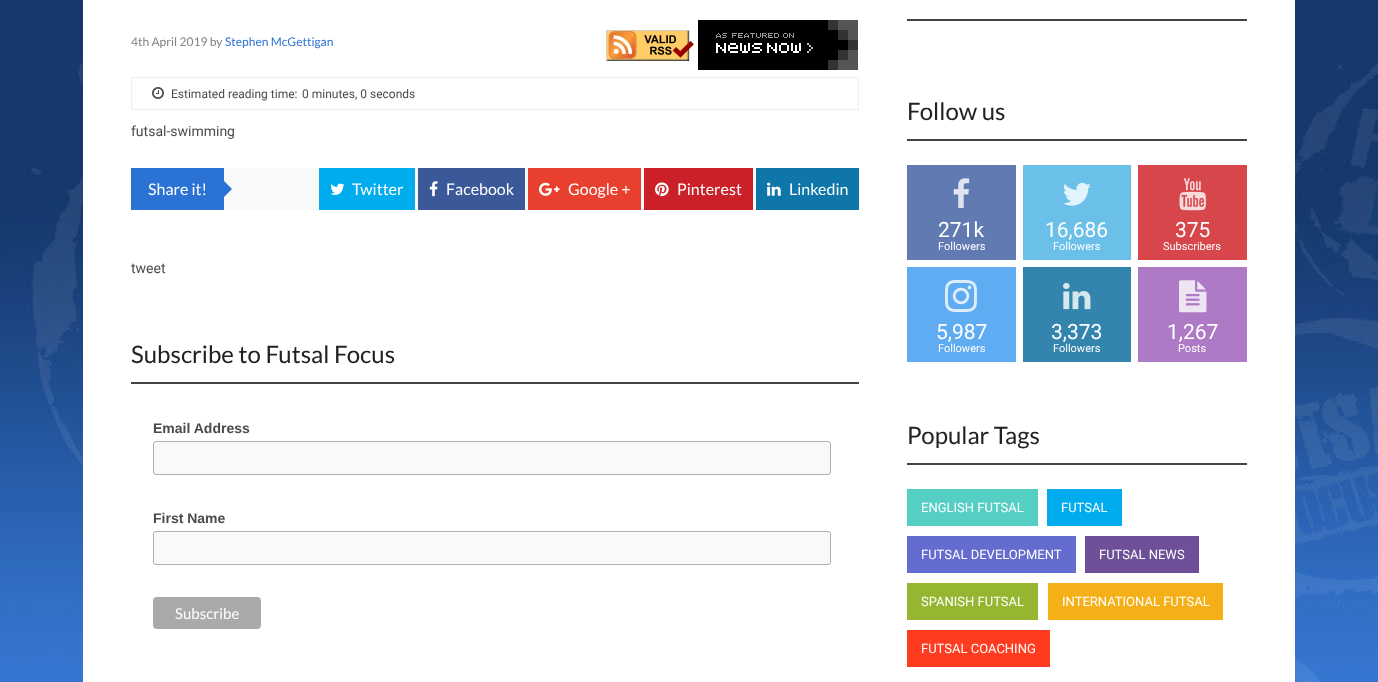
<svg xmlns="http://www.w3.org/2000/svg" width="1378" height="682">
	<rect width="100%" height="100%" fill="#FFFFFF" />
	<image x="0" y="0" width="1378" height="682" href="assets/img1.png" />
	<rect x="83" y="0" width="1212" height="682" fill="#FFFFFF" />
	<text x="131" y="46" font-family="Lato" font-size="12" fill="#828282">4th April 2019 by</text>
	<text x="225" y="46" font-family="Lato" font-size="12" fill="#2A73D5">Stephen McGettigan</text>
	<image x="606" y="30" width="88" height="31" href="assets/img2.png" />
	<image x="698" y="20" width="160" height="50" href="assets/img3.png" />
	<rect x="131.5" y="77.5" width="727" height="32" fill="none" stroke="#EEEEEE" />
	<image x="152" y="87" width="12" height="12" href="assets/img4.png" />
	<g font-family="Roboto" font-size="12" fill="#4B4B4B">
		<text x="171" y="98">Estimated reading time:</text>
		<text x="302" y="98">0 minutes, 0 seconds</text>
	</g>
	<text x="131" y="136" font-family="Roboto" font-size="14" fill="#4B4B4B">futsal-swimming</text>
	<rect x="224" y="168" width="532" height="42" fill="#F9F9F9" />
	<rect x="131" y="168" width="93" height="42" fill="#2A73D5" />
	<text x="148" y="195" font-family="Lato" font-size="16" fill="#FFFFFF">Share it!</text>
	<path d="M224 197V181L232 189Z" fill="#2A73D5" />
	<rect x="319" y="168" width="96" height="42" fill="#00ACEE" />
	<image x="330" y="183" width="15" height="12" href="assets/img5.png" />
	<text x="352" y="195" font-family="Lato" font-size="16" fill="#FFFFFF">Twitter</text>
	<rect x="418" y="168" width="107" height="42" fill="#3B5998" />
	<image x="429" y="181" width="9" height="16" href="assets/img6.png" />
	<text x="446" y="195" font-family="Lato" font-size="16" fill="#FFFFFF">Facebook</text>
	<rect x="528" y="168" width="113" height="42" fill="#E93F2E" />
	<image x="539" y="182" width="21" height="14" href="assets/img7.png" />
	<text x="568" y="195" font-family="Lato" font-size="16" fill="#FFFFFF">Google +</text>
	<rect x="644" y="168" width="109" height="42" fill="#CB2027" />
	<image x="655" y="182" width="14" height="15" href="assets/img8.png" />
	<text x="677" y="195" font-family="Lato" font-size="16" fill="#FFFFFF">Pinterest</text>
	<rect x="756" y="168" width="103" height="42" fill="#0E76A8" />
	<image x="767" y="182" width="14" height="14" href="assets/img9.png" />
	<text x="789" y="195" font-family="Lato" font-size="16" fill="#FFFFFF">Linkedin</text>
	<text x="131" y="273" font-family="Roboto" font-size="14" fill="#4B4B4B">tweet</text>
	<rect x="131" y="382" width="728" height="2" fill="#444444" />
	<text x="131" y="363" font-family="Lato" font-size="24" fill="#212121">Subscribe to Futsal Focus</text>
	<text x="153" y="433" font-family="Liberation Sans" font-size="14" font-weight="700" fill="#4B4B4B">Email Address</text>
	<rect x="153.5" y="441.5" width="677" height="33" rx="2.5" fill="#F9F9F9" stroke="#ABB0B2" />
	<text x="153" y="523" font-family="Liberation Sans" font-size="14" font-weight="700" fill="#4B4B4B">First Name</text>
	<rect x="153.5" y="531.5" width="677" height="33" rx="2.5" fill="#F9F9F9" stroke="#ABB0B2" />
	<rect x="153" y="597" width="108" height="32" rx="4" fill="#AAAAAA" />
	<text x="175" y="619" font-family="Lato" font-size="15" fill="#FFFFFF">Subscribe</text>
	<rect x="907" y="19" width="340" height="2" fill="#444444" />
	<rect x="907" y="139" width="340" height="2" fill="#444444" />
	<text x="907" y="120" font-family="Lato" font-size="24" fill="#212121">Follow us</text>
	<rect x="907" y="165" width="109" height="95" fill="#617AB2" />
	<image x="953" y="178" width="17" height="30" href="assets/img10.png" />
	<text x="938" y="237" font-family="Roboto" font-size="21" fill="#FFFFFF">271k</text>
	<text x="938" y="250" font-family="Roboto" font-size="11" fill="#FFFFFF">Followers</text>
	<rect x="1023" y="165" width="108" height="95" fill="#6AC0E9" />
	<image x="1063" y="182" width="28" height="24" href="assets/img11.png" />
	<text x="1045" y="237" font-family="Roboto" font-size="21" fill="#FFFFFF">16,686</text>
	<text x="1053" y="250" font-family="Roboto" font-size="11" fill="#FFFFFF">Followers</text>
	<rect x="1138" y="165" width="109" height="95" fill="#D6464B" />
	<image x="1179" y="178" width="27" height="33" href="assets/img12.png" />
	<text x="1175" y="237" font-family="Roboto" font-size="21" fill="#FFFFFF">375</text>
	<text x="1163" y="250" font-family="Roboto" font-size="11" fill="#FFFFFF">Subscribers</text>
	<rect x="907" y="267" width="109" height="95" fill="#60ACF3" />
	<image x="945" y="280" width="32" height="32" href="assets/img13.png" />
	<text x="936" y="339" font-family="Roboto" font-size="21" fill="#FFFFFF">5,987</text>
	<text x="938" y="352" font-family="Roboto" font-size="11" fill="#FFFFFF">Followers</text>
	<rect x="1023" y="267" width="108" height="95" fill="#3385AD" />
	<image x="1063" y="283" width="28" height="27" href="assets/img14.png" />
	<text x="1051" y="339" font-family="Roboto" font-size="21" fill="#FFFFFF">3,373</text>
	<text x="1053" y="352" font-family="Roboto" font-size="11" fill="#FFFFFF">Followers</text>
	<rect x="1138" y="267" width="109" height="95" fill="#AF7AC5" />
	<image x="1179" y="280" width="28" height="33" href="assets/img15.png" />
	<text x="1167" y="339" font-family="Roboto" font-size="21" fill="#FFFFFF">1,267</text>
	<text x="1178" y="352" font-family="Roboto" font-size="11" fill="#FFFFFF">Posts</text>
	<rect x="907" y="463" width="340" height="2" fill="#444444" />
	<text x="907" y="444" font-family="Lato" font-size="24" fill="#212121">Popular Tags</text>
	<rect x="907" y="489" width="131" height="37" fill="#55CFC4" />
	<text x="921" y="512" font-family="Roboto" font-size="13" fill="#FFFFFF">ENGLISH FUTSAL</text>
	<rect x="1047" y="489" width="75" height="37" fill="#00ACED" />
	<text x="1061" y="512" font-family="Roboto" font-size="13" fill="#FFFFFF">FUTSAL</text>
	<rect x="907" y="536" width="169" height="37" fill="#656CCF" />
	<text x="921" y="559" font-family="Roboto" font-size="13" fill="#FFFFFF">FUTSAL DEVELOPMENT</text>
	<rect x="1085" y="536" width="114" height="37" fill="#6E5098" />
	<text x="1099" y="559" font-family="Roboto" font-size="13" fill="#FFFFFF">FUTSAL NEWS</text>
	<rect x="907" y="583" width="131" height="37" fill="#95B631" />
	<text x="921" y="606" font-family="Roboto" font-size="13" fill="#FFFFFF">SPANISH FUTSAL</text>
	<rect x="1048" y="583" width="175" height="37" fill="#F5B018" />
	<text x="1062" y="606" font-family="Roboto" font-size="13" fill="#FFFFFF">INTERNATIONAL FUTSAL</text>
	<rect x="907" y="630" width="143" height="37" fill="#FF3C1F" />
	<text x="921" y="653" font-family="Roboto" font-size="13" fill="#FFFFFF">FUTSAL COACHING</text>
</svg>
